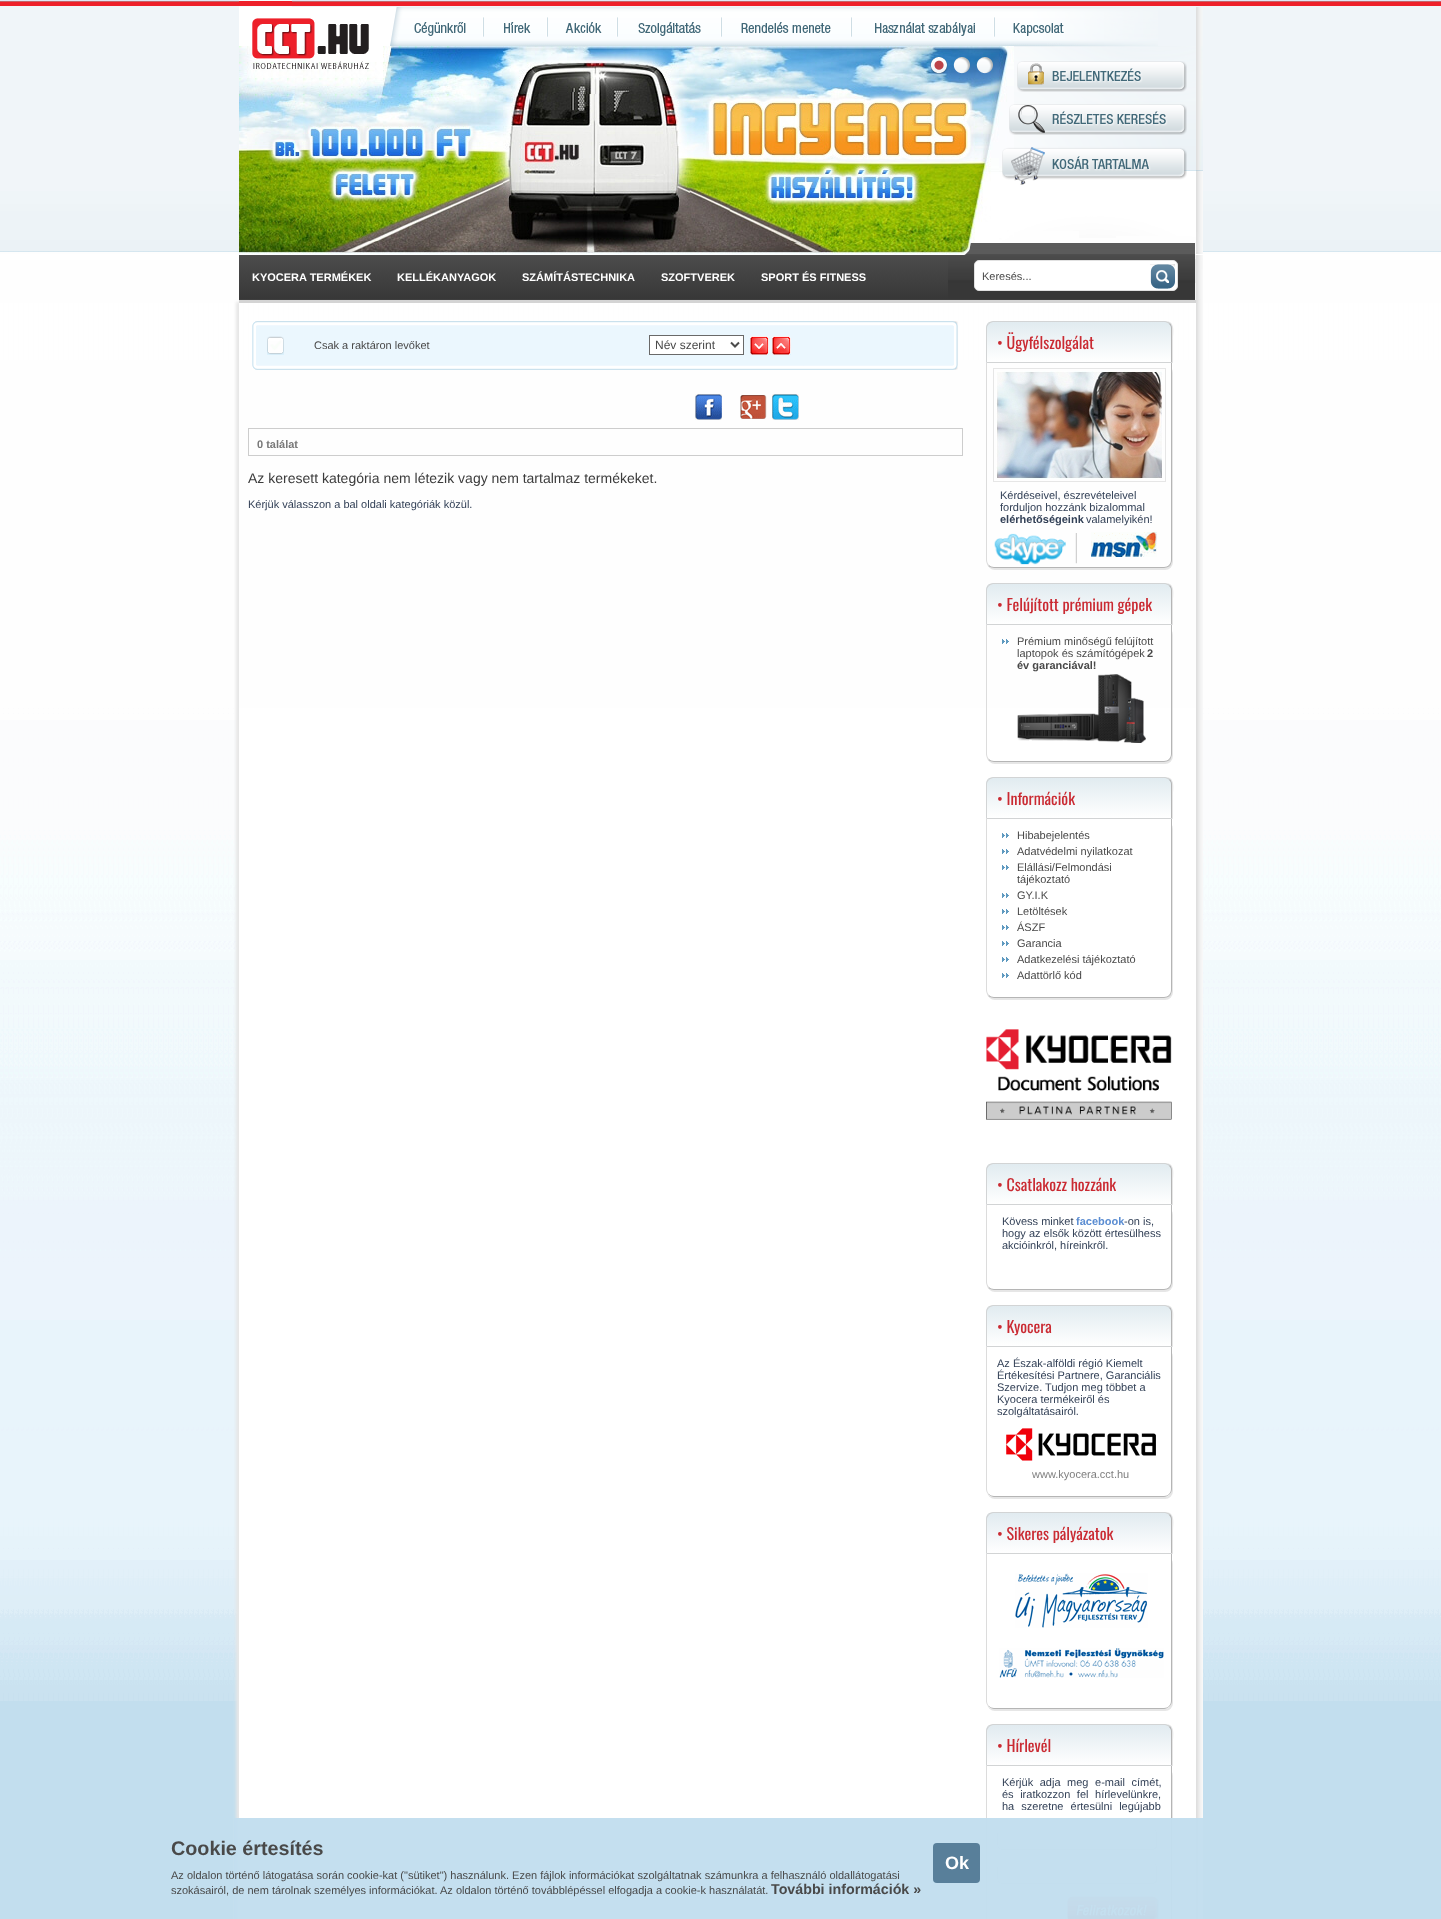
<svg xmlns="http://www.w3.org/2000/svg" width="1441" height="1919">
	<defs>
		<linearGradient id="g1" gradientUnits="userSpaceOnUse" x1="383" y1="27" x2="1196" y2="26"><stop offset="0.5" stop-color="#FFFFFF" /><stop offset="1" stop-color="#EFF5F8" /></linearGradient>
		<linearGradient id="g2" gradientUnits="userSpaceOnUse" x1="594" y1="255" x2="594" y2="300"><stop offset="0" stop-color="#4C4C4C" /><stop offset="1" stop-color="#373737" /></linearGradient>
		<clipPath id="clip1"><path d="M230 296H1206V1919H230ZM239 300H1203V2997H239Z" clip-rule="evenodd" /></clipPath>
		<clipPath id="clip2"><path d="M993 321H1165C1169 321 1172 324 1172 328V363H986V328C986 324 989 321 993 321Z" /></clipPath>
		<linearGradient id="g3" gradientUnits="userSpaceOnUse" x1="1079" y1="322" x2="1079" y2="362"><stop offset="0" stop-color="#E1EBF0" /><stop offset="1" stop-color="#FFFFFF" /></linearGradient>
		<clipPath id="clip3"><path d="M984 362H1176V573H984ZM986 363H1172V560C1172 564.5 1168.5 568 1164 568H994C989.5 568 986 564.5 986 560Z" clip-rule="evenodd" /></clipPath>
		<clipPath id="clip4"><path d="M993 583H1165C1169 583 1172 586 1172 590V625H986V590C986 586 989 583 993 583Z" /></clipPath>
		<linearGradient id="g4" gradientUnits="userSpaceOnUse" x1="1079" y1="584" x2="1079" y2="624"><stop offset="0" stop-color="#E1EBF0" /><stop offset="1" stop-color="#FFFFFF" /></linearGradient>
		<clipPath id="clip5"><path d="M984 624H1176V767H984ZM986 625H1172V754C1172 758.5 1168.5 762 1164 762H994C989.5 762 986 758.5 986 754Z" clip-rule="evenodd" /></clipPath>
		<clipPath id="clip6"><path d="M993 777H1165C1169 777 1172 780 1172 784V819H986V784C986 780 989 777 993 777Z" /></clipPath>
		<linearGradient id="g5" gradientUnits="userSpaceOnUse" x1="1079" y1="778" x2="1079" y2="818"><stop offset="0" stop-color="#E1EBF0" /><stop offset="1" stop-color="#FFFFFF" /></linearGradient>
		<clipPath id="clip7"><path d="M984 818H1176V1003H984ZM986 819H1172V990C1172 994.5 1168.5 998 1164 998H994C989.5 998 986 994.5 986 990Z" clip-rule="evenodd" /></clipPath>
		<clipPath id="clip8"><path d="M993 1163H1165C1169 1163 1172 1166 1172 1170V1205H986V1170C986 1166 989 1163 993 1163Z" /></clipPath>
		<linearGradient id="g6" gradientUnits="userSpaceOnUse" x1="1079" y1="1164" x2="1079" y2="1204"><stop offset="0" stop-color="#E1EBF0" /><stop offset="1" stop-color="#FFFFFF" /></linearGradient>
		<clipPath id="clip9"><path d="M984 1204H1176V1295H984ZM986 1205H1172V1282C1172 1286.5 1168.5 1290 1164 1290H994C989.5 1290 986 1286.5 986 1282Z" clip-rule="evenodd" /></clipPath>
		<clipPath id="clip10"><path d="M993 1305H1165C1169 1305 1172 1308 1172 1312V1347H986V1312C986 1308 989 1305 993 1305Z" /></clipPath>
		<linearGradient id="g7" gradientUnits="userSpaceOnUse" x1="1079" y1="1306" x2="1079" y2="1346"><stop offset="0" stop-color="#E1EBF0" /><stop offset="1" stop-color="#FFFFFF" /></linearGradient>
		<clipPath id="clip11"><path d="M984 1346H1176V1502H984ZM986 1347H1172V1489C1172 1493.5 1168.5 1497 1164 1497H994C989.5 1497 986 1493.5 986 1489Z" clip-rule="evenodd" /></clipPath>
		<clipPath id="clip12"><path d="M993 1512H1165C1169 1512 1172 1515 1172 1519V1554H986V1519C986 1515 989 1512 993 1512Z" /></clipPath>
		<linearGradient id="g8" gradientUnits="userSpaceOnUse" x1="1079" y1="1513" x2="1079" y2="1553"><stop offset="0" stop-color="#E1EBF0" /><stop offset="1" stop-color="#FFFFFF" /></linearGradient>
		<clipPath id="clip13"><path d="M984 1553H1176V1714H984ZM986 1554H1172V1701C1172 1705.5 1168.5 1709 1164 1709H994C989.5 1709 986 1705.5 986 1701Z" clip-rule="evenodd" /></clipPath>
		<clipPath id="clip14"><path d="M993 1724H1165C1169 1724 1172 1727 1172 1731V1766H986V1731C986 1727 989 1724 993 1724Z" /></clipPath>
		<linearGradient id="g9" gradientUnits="userSpaceOnUse" x1="1079" y1="1725" x2="1079" y2="1765"><stop offset="0" stop-color="#E1EBF0" /><stop offset="1" stop-color="#FFFFFF" /></linearGradient>
		<clipPath id="clip15"><rect x="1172" y="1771" width="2" height="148" /></clipPath>
	</defs>
	<rect width="100%" height="100%" fill="#C2DEEE" />
	<image x="0" y="0" width="1441" height="1701" href="assets/img1.png" />
	<image x="239" y="0" width="53" height="7" href="assets/img2.png" />
	<rect x="239" y="7" width="144" height="39" fill="#FFFFFF" />
	<image x="1196" y="7" width="7" height="39" href="assets/img3.png" />
	<rect x="383" y="7" width="724" height="39" fill="url(#g1)" />
	<image x="1079" y="7" width="79" height="39" href="assets/img4.png" />
	<image x="390" y="7" width="689" height="39" href="assets/img5.png" />
	<image x="1014" y="46" width="189" height="208" href="assets/img6.png" />
	<image x="239" y="46" width="775" height="209" href="assets/img8.png" />
	<image x="252" y="18" width="117" height="51" href="assets/img7.png" />
	<image x="930" y="57" width="18" height="18" href="assets/img9.png" />
	<image x="953" y="57" width="17" height="17" href="assets/img10.png" />
	<image x="976" y="57" width="17" height="17" href="assets/img11.png" />
	<image x="1017" y="61" width="170" height="31" href="assets/img12.png" />
	<image x="1009" y="104" width="178" height="31" href="assets/img13.png" />
	<image x="1002" y="147" width="185" height="38" href="assets/img14.png" />
	<image x="962" y="243" width="233" height="12" href="assets/img15.png" />
	<rect x="239" y="255" width="709" height="45" fill="url(#g2)" />
	<g font-family="Liberation Sans" font-size="11" font-weight="700" fill="#FFFFFF">
		<text x="252" y="281">KYOCERA TERMÉKEK</text>
		<text x="397" y="281">KELLÉKANYAGOK</text>
		<text x="522" y="281">SZÁMÍTÁSTECHNIKA</text>
		<text x="661" y="281">SZOFTVEREK</text>
		<text x="761" y="281">SPORT ÉS FITNESS</text>
	</g>
	<image x="948" y="255" width="255" height="45" href="assets/img16.png" />
	<rect x="974.5" y="260.5" width="203" height="30" rx="4.5" fill="#FFFFFF" stroke="#E1E1E1" />
	<text x="982" y="280" font-family="Liberation Sans" font-size="11" fill="#494949">Keresés...</text>
	<image x="1150" y="264" width="25" height="25" href="assets/img17.png" />
	<g clip-path="url(#clip1)">
		<rect x="236" y="302" width="964" height="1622" fill="#E6E6E6" filter="blur(1.5px)" />
	</g>
	<image x="1196" y="300" width="7" height="1619" href="assets/img18.png" />
	<rect x="239" y="300" width="957" height="3" fill="#D4D4D4" />
	<rect x="239" y="708" width="957" height="1211" fill="#FFFFFF" />
	<image x="252" y="321" width="706" height="5" href="assets/img19.png" />
	<image x="252" y="326" width="706" height="39" href="assets/img20.png" />
	<image x="267" y="336" width="17" height="19" href="assets/img21.png" />
	<text x="314" y="349" font-family="Liberation Sans" font-size="11" fill="#494949">Csak a raktáron levőket</text>
	<rect x="649.5" y="335.5" width="94" height="19" fill="#FFFFFF" stroke="#696969" />
	<path d="M731 342.5L735 346.5L739 342.5" fill="none" stroke="#4C4C4C" stroke-width="2" />
	<text x="655" y="349" font-family="Liberation Sans" font-size="12" fill="#494949">Név szerint</text>
	<image x="750" y="336" width="19" height="19" href="assets/img22.png" />
	<image x="772" y="336" width="19" height="19" href="assets/img23.png" />
	<image x="252" y="365" width="706" height="5" href="assets/img24.png" />
	<image x="695" y="394" width="27" height="26" href="assets/img25.png" />
	<image x="740" y="395" width="27" height="24" href="assets/img26.png" />
	<image x="772" y="394" width="27" height="26" href="assets/img27.png" />
	<rect x="248.5" y="428.5" width="714" height="27" fill="none" stroke="#CDCDCD" />
	<text x="257" y="448" font-family="Liberation Sans" font-size="11" font-weight="700" fill="#787878">0 találat</text>
	<text x="248" y="483" font-family="Liberation Sans" font-size="14" fill="#3C3C3C">Az keresett kategória nem létezik vagy nem tartalmaz termékeket.</text>
	<text x="248" y="508" font-family="Liberation Sans" font-size="11" fill="#334157">Kérjük válasszon a bal oldali kategóriák közül.</text>
	<path d="M1172 363H1173V340C1173 332 1176 321 1165 321C1169 321 1172 324 1172 328Z" fill="#E6E6E6" />
	<g clip-path="url(#clip2)">
		<rect x="986" y="322" width="186" height="40" fill="url(#g3)" />
	</g>
	<path d="M993 321C991 321 989 322 988 323L989 324C990 323 992 322 993 322H1165C1166 322 1168 323 1169 324L1170 323C1169 322 1167 321 1165 321Z" fill="#D2D4D5" />
	<path d="M1172 363V328C1172 326 1171 324 1170 323L1169 324C1170 325 1171 326 1171 328V362Z" fill="#B5B5B5" />
	<path d="M1172 363L1171 362H987L986 363Z" fill="#D2D4D5" />
	<path d="M986 363L987 362V328C987 326 988 325 989 324L988 323C987 324 986 326 986 328Z" fill="#D2D4D5" />
	<text x="997" y="349" font-family="Oswald" font-size="16" fill="#CA2A32">• Ügyfélszolgálat</text>
	<g clip-path="url(#clip3)">
		<rect x="987" y="365" width="186" height="205" rx="8" fill="#E6E6E6" filter="blur(0.5px)" />
	</g>
	<path d="M1172 363H1171V560C1171 562 1170 564 1169 565L1170 566C1171 564 1172 562 1172 560Z" fill="#B5B5B5" />
	<path d="M994 568H1164C1166 568 1168 567 1170 566L1169 565C1168 566 1166 567 1164 567H994C992 567 990 566 989 565L988 566C990 567 992 568 994 568Z" fill="#B5B5B5" />
	<path d="M986 363H987V560C987 562 988 564 989 565L988 566C987 564 986 562 986 560Z" fill="#DCDCDC" />
	<rect x="993.5" y="368.5" width="172" height="113" fill="none" stroke="#E6E6E6" />
	<image x="996" y="371" width="167" height="108" href="assets/img28.png" />
	<g font-family="Liberation Sans" font-size="11" fill="#334157">
		<text x="1000" y="499">Kérdéseivel, észrevételeivel</text>
		<text x="1000" y="511">forduljon hozzánk bizalommal</text>
	</g>
	<text x="1000" y="523" font-family="Liberation Sans" font-size="11" font-weight="700" fill="#334157">elérhetőségeink</text>
	<text x="1086" y="523" font-family="Liberation Sans" font-size="11" fill="#334157">valamelyikén!</text>
	<image x="994" y="533" width="83" height="32" href="assets/img29.png" />
	<image x="1091" y="532" width="66" height="25" href="assets/img30.png" />
	<path d="M1172 625H1173V602C1173 594 1176 583 1165 583C1169 583 1172 586 1172 590Z" fill="#E6E6E6" />
	<g clip-path="url(#clip4)">
		<rect x="986" y="584" width="186" height="40" fill="url(#g4)" />
	</g>
	<path d="M993 583C991 583 989 584 988 585L989 586C990 585 992 584 993 584H1165C1166 584 1168 585 1169 586L1170 585C1169 584 1167 583 1165 583Z" fill="#D2D4D5" />
	<path d="M1172 625V590C1172 588 1171 586 1170 585L1169 586C1170 587 1171 588 1171 590V624Z" fill="#B5B5B5" />
	<path d="M1172 625L1171 624H987L986 625Z" fill="#D2D4D5" />
	<path d="M986 625L987 624V590C987 588 988 587 989 586L988 585C987 586 986 588 986 590Z" fill="#D2D4D5" />
	<text x="997" y="611" font-family="Oswald" font-size="16" fill="#CA2A32">• Felújított prémium gépek</text>
	<g clip-path="url(#clip5)">
		<rect x="987" y="627" width="186" height="137" rx="8" fill="#E6E6E6" filter="blur(0.5px)" />
	</g>
	<path d="M1172 625H1171V754C1171 756 1170 758 1169 759L1170 760C1171 758 1172 756 1172 754Z" fill="#B5B5B5" />
	<path d="M994 762H1164C1166 762 1168 761 1170 760L1169 759C1168 760 1166 761 1164 761H994C992 761 990 760 989 759L988 760C990 761 992 762 994 762Z" fill="#B5B5B5" />
	<path d="M986 625H987V754C987 756 988 758 989 759L988 760C987 758 986 756 986 754Z" fill="#DCDCDC" />
	<image x="1002" y="639" width="7" height="5" href="assets/img31.png" />
	<g font-family="Liberation Sans" font-size="11" fill="#494949">
		<text x="1017" y="645">Prémium minőségű felújított</text>
		<text x="1017" y="657">laptopok és számítógépek</text>
	</g>
	<g font-family="Liberation Sans" font-size="11" font-weight="700" fill="#494949">
		<text x="1147" y="657">2</text>
		<text x="1017" y="669">év garanciával!</text>
	</g>
	<image x="1017" y="674" width="129" height="69" href="assets/img32.png" />
	<path d="M1172 819H1173V796C1173 788 1176 777 1165 777C1169 777 1172 780 1172 784Z" fill="#E6E6E6" />
	<g clip-path="url(#clip6)">
		<rect x="986" y="778" width="186" height="40" fill="url(#g5)" />
	</g>
	<path d="M993 777C991 777 989 778 988 779L989 780C990 779 992 778 993 778H1165C1166 778 1168 779 1169 780L1170 779C1169 778 1167 777 1165 777Z" fill="#D2D4D5" />
	<path d="M1172 819V784C1172 782 1171 780 1170 779L1169 780C1170 781 1171 782 1171 784V818Z" fill="#B5B5B5" />
	<path d="M1172 819L1171 818H987L986 819Z" fill="#D2D4D5" />
	<path d="M986 819L987 818V784C987 782 988 781 989 780L988 779C987 780 986 782 986 784Z" fill="#D2D4D5" />
	<text x="997" y="805" font-family="Oswald" font-size="16" fill="#CA2A32">• Információk</text>
	<g clip-path="url(#clip7)">
		<rect x="987" y="821" width="186" height="179" rx="8" fill="#E6E6E6" filter="blur(0.5px)" />
	</g>
	<path d="M1172 819H1171V990C1171 992 1170 994 1169 995L1170 996C1171 994 1172 992 1172 990Z" fill="#B5B5B5" />
	<path d="M994 998H1164C1166 998 1168 997 1170 996L1169 995C1168 996 1166 997 1164 997H994C992 997 990 996 989 995L988 996C990 997 992 998 994 998Z" fill="#B5B5B5" />
	<path d="M986 819H987V990C987 992 988 994 989 995L988 996C987 994 986 992 986 990Z" fill="#DCDCDC" />
	<image x="1002" y="833" width="7" height="5" href="assets/img31.png" />
	<text x="1017" y="839" font-family="Liberation Sans" font-size="11" fill="#494949">Hibabejelentés</text>
	<image x="1002" y="849" width="7" height="5" href="assets/img31.png" />
	<text x="1017" y="855" font-family="Liberation Sans" font-size="11" fill="#494949">Adatvédelmi nyilatkozat</text>
	<image x="1002" y="865" width="7" height="5" href="assets/img31.png" />
	<g font-family="Liberation Sans" font-size="11" fill="#494949">
		<text x="1017" y="871">Elállási/Felmondási</text>
		<text x="1017" y="883">tájékoztató</text>
	</g>
	<image x="1002" y="893" width="7" height="5" href="assets/img31.png" />
	<text x="1017" y="899" font-family="Liberation Sans" font-size="11" fill="#494949">GY.I.K</text>
	<image x="1002" y="909" width="7" height="5" href="assets/img31.png" />
	<text x="1017" y="915" font-family="Liberation Sans" font-size="11" fill="#494949">Letöltések</text>
	<image x="1002" y="925" width="7" height="5" href="assets/img31.png" />
	<text x="1017" y="931" font-family="Liberation Sans" font-size="11" fill="#494949">ÁSZF</text>
	<image x="1002" y="941" width="7" height="5" href="assets/img31.png" />
	<text x="1017" y="947" font-family="Liberation Sans" font-size="11" fill="#494949">Garancia</text>
	<image x="1002" y="957" width="7" height="5" href="assets/img31.png" />
	<text x="1017" y="963" font-family="Liberation Sans" font-size="11" fill="#494949">Adatkezelési tájékoztató</text>
	<image x="1002" y="973" width="7" height="5" href="assets/img31.png" />
	<text x="1017" y="979" font-family="Liberation Sans" font-size="11" fill="#494949">Adattörlő kód</text>
	<image x="986" y="1029" width="186" height="91" href="assets/img33.png" />
	<path d="M1172 1205H1173V1182C1173 1174 1176 1163 1165 1163C1169 1163 1172 1166 1172 1170Z" fill="#E6E6E6" />
	<g clip-path="url(#clip8)">
		<rect x="986" y="1164" width="186" height="40" fill="url(#g6)" />
	</g>
	<path d="M993 1163C991 1163 989 1164 988 1165L989 1166C990 1165 992 1164 993 1164H1165C1166 1164 1168 1165 1169 1166L1170 1165C1169 1164 1167 1163 1165 1163Z" fill="#D2D4D5" />
	<path d="M1172 1205V1170C1172 1168 1171 1166 1170 1165L1169 1166C1170 1167 1171 1168 1171 1170V1204Z" fill="#B5B5B5" />
	<path d="M1172 1205L1171 1204H987L986 1205Z" fill="#D2D4D5" />
	<path d="M986 1205L987 1204V1170C987 1168 988 1167 989 1166L988 1165C987 1166 986 1168 986 1170Z" fill="#D2D4D5" />
	<text x="997" y="1191" font-family="Oswald" font-size="16" fill="#CA2A32">• Csatlakozz hozzánk</text>
	<g clip-path="url(#clip9)">
		<rect x="987" y="1207" width="186" height="85" rx="8" fill="#E6E6E6" filter="blur(0.5px)" />
	</g>
	<path d="M1172 1205H1171V1282C1171 1284 1170 1286 1169 1287L1170 1288C1171 1286 1172 1284 1172 1282Z" fill="#B5B5B5" />
	<path d="M994 1290H1164C1166 1290 1168 1289 1170 1288L1169 1287C1168 1288 1166 1289 1164 1289H994C992 1289 990 1288 989 1287L988 1288C990 1289 992 1290 994 1290Z" fill="#B5B5B5" />
	<path d="M986 1205H987V1282C987 1284 988 1286 989 1287L988 1288C987 1286 986 1284 986 1282Z" fill="#DCDCDC" />
	<text x="1002" y="1225" font-family="Liberation Sans" font-size="11" fill="#334157">Kövess minket</text>
	<text x="1076" y="1225" font-family="Liberation Sans" font-size="11" font-weight="700" fill="#5B8DD2">facebook</text>
	<g font-family="Liberation Sans" font-size="11" fill="#334157">
		<text x="1124" y="1225">-on is,</text>
		<text x="1002" y="1237">hogy az elsők között értesülhess</text>
		<text x="1002" y="1249">akcióinkról, híreinkről.</text>
	</g>
	<path d="M1172 1347H1173V1324C1173 1316 1176 1305 1165 1305C1169 1305 1172 1308 1172 1312Z" fill="#E6E6E6" />
	<g clip-path="url(#clip10)">
		<rect x="986" y="1306" width="186" height="40" fill="url(#g7)" />
	</g>
	<path d="M993 1305C991 1305 989 1306 988 1307L989 1308C990 1307 992 1306 993 1306H1165C1166 1306 1168 1307 1169 1308L1170 1307C1169 1306 1167 1305 1165 1305Z" fill="#D2D4D5" />
	<path d="M1172 1347V1312C1172 1310 1171 1308 1170 1307L1169 1308C1170 1309 1171 1310 1171 1312V1346Z" fill="#B5B5B5" />
	<path d="M1172 1347L1171 1346H987L986 1347Z" fill="#D2D4D5" />
	<path d="M986 1347L987 1346V1312C987 1310 988 1309 989 1308L988 1307C987 1308 986 1310 986 1312Z" fill="#D2D4D5" />
	<text x="997" y="1333" font-family="Oswald" font-size="16" fill="#CA2A32">• Kyocera</text>
	<g clip-path="url(#clip11)">
		<rect x="987" y="1349" width="186" height="150" rx="8" fill="#E6E6E6" filter="blur(0.5px)" />
	</g>
	<path d="M1172 1347H1171V1489C1171 1491 1170 1493 1169 1494H1170C1171 1493 1172 1491 1172 1489Z" fill="#B5B5B5" />
	<path d="M994 1497H1164C1166 1497 1168 1496 1170 1494H1169C1168 1495 1166 1496 1164 1496H994C992 1496 990 1495 989 1494H988C990 1496 992 1497 994 1497Z" fill="#B5B5B5" />
	<path d="M986 1347H987V1489C987 1491 988 1493 989 1494H988C987 1493 986 1491 986 1489Z" fill="#DCDCDC" />
	<g font-family="Liberation Sans" font-size="11" fill="#334157">
		<text x="997" y="1367">Az Észak-alföldi régió Kiemelt</text>
		<text x="997" y="1379">Értékesítési Partnere, Garanciális</text>
		<text x="997" y="1391">Szervize. Tudjon meg többet a</text>
		<text x="997" y="1403">Kyocera termékeiről és</text>
		<text x="997" y="1415">szolgáltatásairól.</text>
	</g>
	<image x="1006" y="1428" width="150" height="33" href="assets/img34.png" />
	<text x="1032" y="1478" font-family="Liberation Sans" font-size="11" fill="#7F7F7F">www.kyocera.cct.hu</text>
	<path d="M1172 1554H1173V1531C1173 1523 1176 1512 1165 1512C1169 1512 1172 1515 1172 1519Z" fill="#E6E6E6" />
	<g clip-path="url(#clip12)">
		<rect x="986" y="1513" width="186" height="40" fill="url(#g8)" />
	</g>
	<path d="M993 1512C991 1512 989 1513 988 1514L989 1515C990 1514 992 1513 993 1513H1165C1166 1513 1168 1514 1169 1515L1170 1514C1169 1513 1167 1512 1165 1512Z" fill="#D2D4D5" />
	<path d="M1172 1554V1519C1172 1517 1171 1515 1170 1514L1169 1515C1170 1516 1171 1518 1171 1519V1553Z" fill="#B5B5B5" />
	<path d="M1172 1554L1171 1553H987L986 1554Z" fill="#D2D4D5" />
	<path d="M986 1554L987 1553V1519C987 1518 988 1516 989 1515L988 1514C987 1515 986 1517 986 1519Z" fill="#D2D4D5" />
	<text x="997" y="1540" font-family="Oswald" font-size="16" fill="#CA2A32">• Sikeres pályázatok</text>
	<g clip-path="url(#clip13)">
		<rect x="987" y="1556" width="186" height="155" rx="8" fill="#E6E6E6" filter="blur(0.5px)" />
	</g>
	<path d="M1172 1554H1171V1701C1171 1703 1170 1705 1169 1706H1170C1171 1705 1172 1703 1172 1701Z" fill="#B5B5B5" />
	<path d="M994 1709H1164C1166 1709 1168 1708 1170 1706H1169C1168 1707 1166 1708 1164 1708H994C992 1708 990 1707 989 1706H988C990 1708 992 1709 994 1709Z" fill="#B5B5B5" />
	<path d="M986 1554H987V1701C987 1703 988 1705 989 1706H988C987 1705 986 1703 986 1701Z" fill="#DCDCDC" />
	<image x="1015" y="1573" width="133" height="55" href="assets/img35.png" />
	<image x="999" y="1648" width="165" height="30" href="assets/img36.png" />
	<path d="M1172 1766H1173V1743C1173 1735 1176 1724 1165 1724C1169 1724 1172 1727 1172 1731Z" fill="#E6E6E6" />
	<g clip-path="url(#clip14)">
		<rect x="986" y="1725" width="186" height="40" fill="url(#g9)" />
	</g>
	<path d="M993 1724C991 1724 989 1725 988 1726L989 1727C990 1726 992 1725 993 1725H1165C1166 1725 1168 1726 1169 1727L1170 1726C1169 1725 1167 1724 1165 1724Z" fill="#D2D4D5" />
	<path d="M1172 1766V1731C1172 1729 1171 1727 1170 1726L1169 1727C1170 1728 1171 1730 1171 1731V1765Z" fill="#B5B5B5" />
	<path d="M1172 1766L1171 1765H987L986 1766Z" fill="#D2D4D5" />
	<path d="M986 1766L987 1765V1731C987 1730 988 1728 989 1727L988 1726C987 1727 986 1729 986 1731Z" fill="#D2D4D5" />
	<text x="997" y="1752" font-family="Oswald" font-size="16" fill="#CA2A32">• Hírlevél</text>
	<g clip-path="url(#clip15)">
		<rect x="987" y="1768" width="186" height="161" rx="8" fill="#E6E6E6" filter="blur(0.5px)" />
	</g>
	<path d="M1172 1766H1171V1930C1171 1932 1170 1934 1169 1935L1170 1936C1171 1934 1172 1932 1172 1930Z" fill="#B5B5B5" />
	<path d="M986 1766H987V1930C987 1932 988 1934 989 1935L988 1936C987 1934 986 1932 986 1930Z" fill="#DCDCDC" />
	<g font-family="Liberation Sans" font-size="11" fill="#334157">
		<text x="1002" y="1786" word-spacing="3.5">Kérjük adja meg e-mail címét,</text>
		<text x="1002" y="1798" word-spacing="3.5">és iratkozzon fel hírlevelünkre,</text>
		<text x="1002" y="1810" word-spacing="4">ha szeretne értesülni legújabb</text>
	</g>
	<image x="997" y="1828" width="160" height="23" href="assets/img37.png" />
	<image x="997" y="1862" width="160" height="23" href="assets/img37.png" />
	<image x="1067" y="1896" width="94" height="23" href="assets/img38.png" />
	<rect x="234" y="1818" width="969" height="101" fill="#C2DEEE" fill-opacity="0.97" />
	<text x="171" y="1855" font-family="Liberation Sans" font-size="19.75" font-weight="700" fill="#494949">Cookie értesítés</text>
	<g font-family="Liberation Sans" font-size="11" fill="#494949">
		<text x="171" y="1879">Az oldalon történő látogatása során cookie-kat ("sütiket") használunk. Ezen fájlok információkat szolgáltatnak számunkra a felhasználó oldallátogatási</text>
		<text x="171" y="1894">szokásairól, de nem tárolnak személyes információkat. Az oldalon történő továbblépéssel elfogadja a cookie-k használatát.</text>
	</g>
	<text x="771" y="1894" font-family="Liberation Sans" font-size="14.25" font-weight="700" fill="#494949">További információk »</text>
	<rect x="933" y="1843" width="47" height="40" rx="4" fill="#587F9A" />
	<text x="945" y="1869" font-family="Liberation Sans" font-size="18" font-weight="700" fill="#FFFFFF">Ok</text>
</svg>
